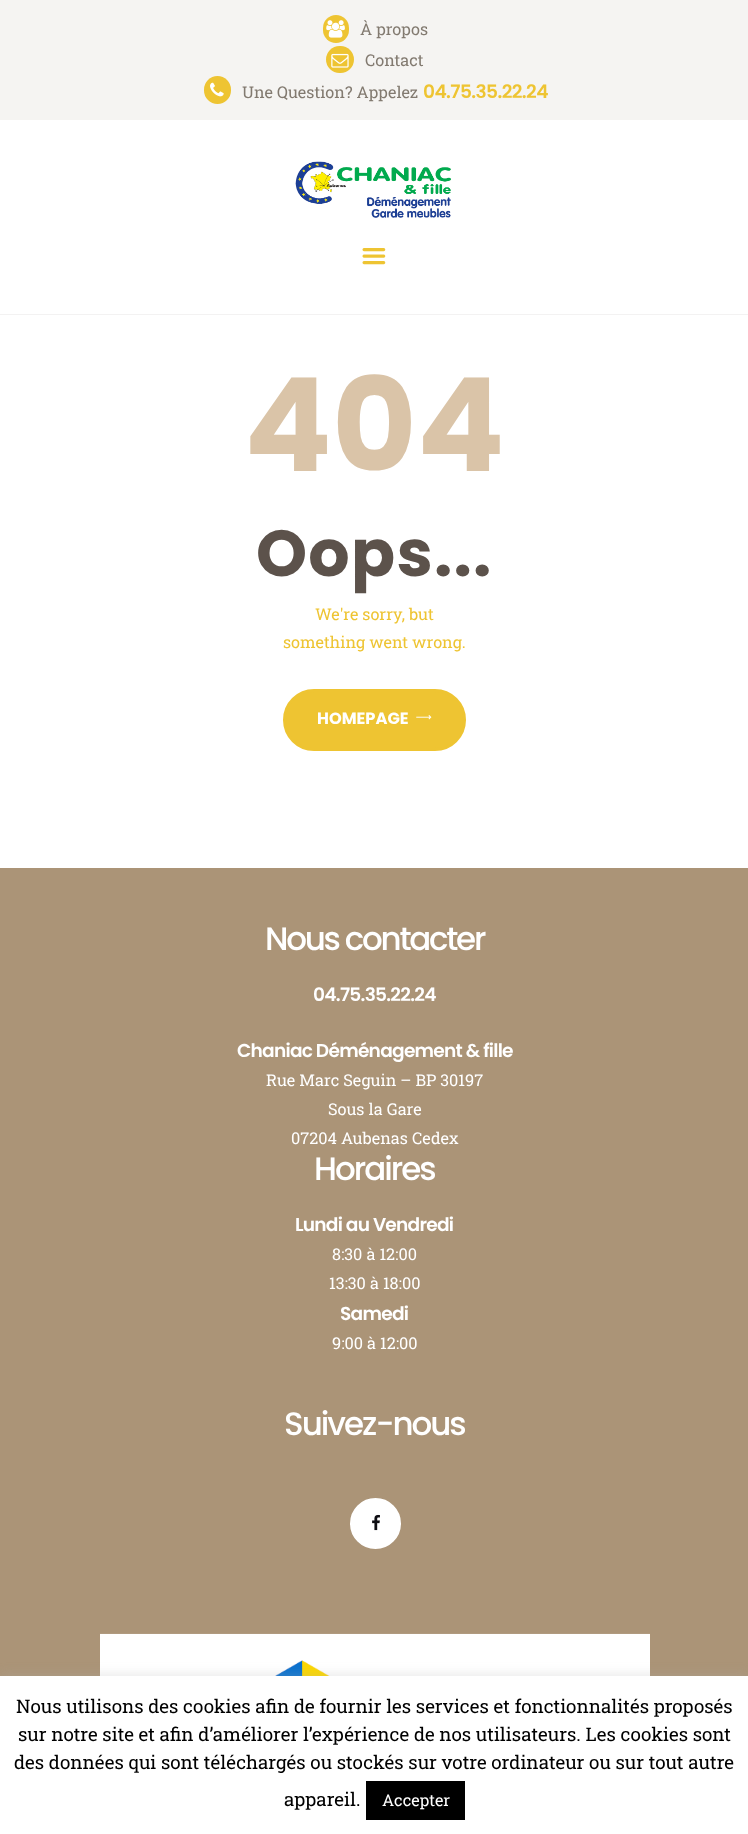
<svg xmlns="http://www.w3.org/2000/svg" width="748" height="1834">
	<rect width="100%" height="100%" fill="#FFFFFF" />
	<rect x="0" y="0" width="748" height="120" fill="#F5F4F2" />
	<rect x="323" y="15" width="26" height="28" rx="13" fill="#EEC432" />
	<image x="326" y="20" width="19" height="18" href="assets/img1.png" />
	<text x="360" y="35" font-family="Roboto Slab" font-size="16.25" fill="#827A70">À propos</text>
	<rect x="326" y="46" width="28" height="27" rx="13.5" fill="#EEC432" />
	<image x="331" y="53" width="18" height="15" href="assets/img2.png" />
	<text x="365" y="66" font-family="Roboto Slab" font-size="16.25" fill="#827A70">Contact</text>
	<rect x="204" y="76" width="27" height="28" rx="13.5" fill="#EEC432" />
	<image x="210" y="82" width="14" height="15" href="assets/img3.png" />
	<text x="242" y="98" font-family="Roboto Slab" font-size="16.25" fill="#827A70">Une Question? Appelez</text>
	<text x="423" y="98" font-family="Poppins" font-size="18.6" font-weight="600" letter-spacing="-0.6" fill="#EEC432">04.75.35.22.24</text>
	<rect x="0" y="314" width="748" height="1" fill="#F3F2F2" />
	<image x="295" y="161" width="156" height="57" href="assets/img4.png" />
	<image x="362" y="248" width="24" height="17" href="assets/img5.png" />
	<text x="244" y="471" font-family="Poppins" font-size="130" font-weight="700" fill="#DAC4A8">404</text>
	<text x="256" y="576" font-family="Poppins" font-size="65" font-weight="700" letter-spacing="1.25" fill="#5C524B">Oops...</text>
	<g font-family="Roboto Slab" font-size="16.25" fill="#EEC432">
		<text x="315" y="620">We're sorry, but</text>
		<text x="283" y="648">something went wrong.</text>
	</g>
	<rect x="284.5" y="690.5" width="180" height="59" rx="29.5" fill="#EEC432" stroke="#EEC432" stroke-width="3" />
	<text x="317" y="724" font-family="Poppins" font-size="16.25" font-weight="700" fill="#FFFFFF">HOMEPAGE</text>
	<image x="416" y="715" width="16" height="5" href="assets/img6.png" />
	<rect x="0" y="868" width="748" height="808" fill="#AB9477" />
	<text x="265" y="950" font-family="Poppins" font-size="32.5" font-weight="500" letter-spacing="-2.25" fill="#FFFFFF">Nous contacter</text>
	<g font-family="Poppins" font-size="18.6" font-weight="600" letter-spacing="-0.75" fill="#FFFFFF">
		<text x="313" y="1001">04.75.35.22.24</text>
		<text x="237" y="1057">Chaniac Déménagement &amp; fille</text>
	</g>
	<g font-family="Roboto Slab" font-size="16.25" fill="#FFFFFF">
		<text x="266" y="1086">Rue Marc Seguin – BP 30197</text>
		<text x="328" y="1115">Sous la Gare</text>
		<text x="291" y="1144">07204 Aubenas Cedex</text>
	</g>
	<text x="314" y="1180" font-family="Poppins" font-size="32.5" font-weight="500" letter-spacing="-2" fill="#FFFFFF">Horaires</text>
	<text x="295" y="1231" font-family="Poppins" font-size="18.6" font-weight="600" letter-spacing="-0.75" fill="#FFFFFF">Lundi au Vendredi</text>
	<g font-family="Roboto Slab" font-size="16.25" fill="#FFFFFF">
		<text x="332" y="1260">8:30 à 12:00</text>
		<text x="329" y="1289">13:30 à 18:00</text>
	</g>
	<text x="340" y="1320" font-family="Poppins" font-size="18.6" font-weight="600" letter-spacing="-0.75" fill="#FFFFFF">Samedi</text>
	<text x="332" y="1349" font-family="Roboto Slab" font-size="16.25" fill="#FFFFFF">9:00 à 12:00</text>
	<text x="284" y="1435" font-family="Poppins" font-size="32.5" font-weight="500" letter-spacing="-2" fill="#FFFFFF">Suivez-nous</text>
	<circle cx="375.5" cy="1523.5" r="24" fill="#FFFFFF" stroke="#FFFFFF" stroke-width="3" />
	<image x="372" y="1514" width="8" height="17" href="assets/img7.png" />
	<image x="100" y="1633" width="550" height="43" href="assets/img8.png" />
	<rect x="0" y="1675" width="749" height="159" fill="#ACABAB" fill-opacity="0.3" filter="blur(6px)" />
	<rect x="0" y="1676" width="748" height="158" fill="#FFFFFF" />
	<g font-family="Roboto Slab" font-size="18.75" fill="#000000">
		<text x="16" y="1713">Nous utilisons des cookies afin de fournir les services et fonctionnalités proposés</text>
		<text x="18" y="1741">sur notre site et afin d’améliorer l’expérience de nos utilisateurs. Les cookies sont</text>
		<text x="14" y="1769">des données qui sont téléchargés ou stockés sur votre ordinateur ou sur tout autre</text>
		<text x="284" y="1806">appareil.</text>
	</g>
	<rect x="366" y="1781" width="99" height="39" fill="#000000" />
	<text x="382" y="1806" font-family="Roboto Slab" font-size="16.25" fill="#FFFFFF">Accepter</text>
</svg>
